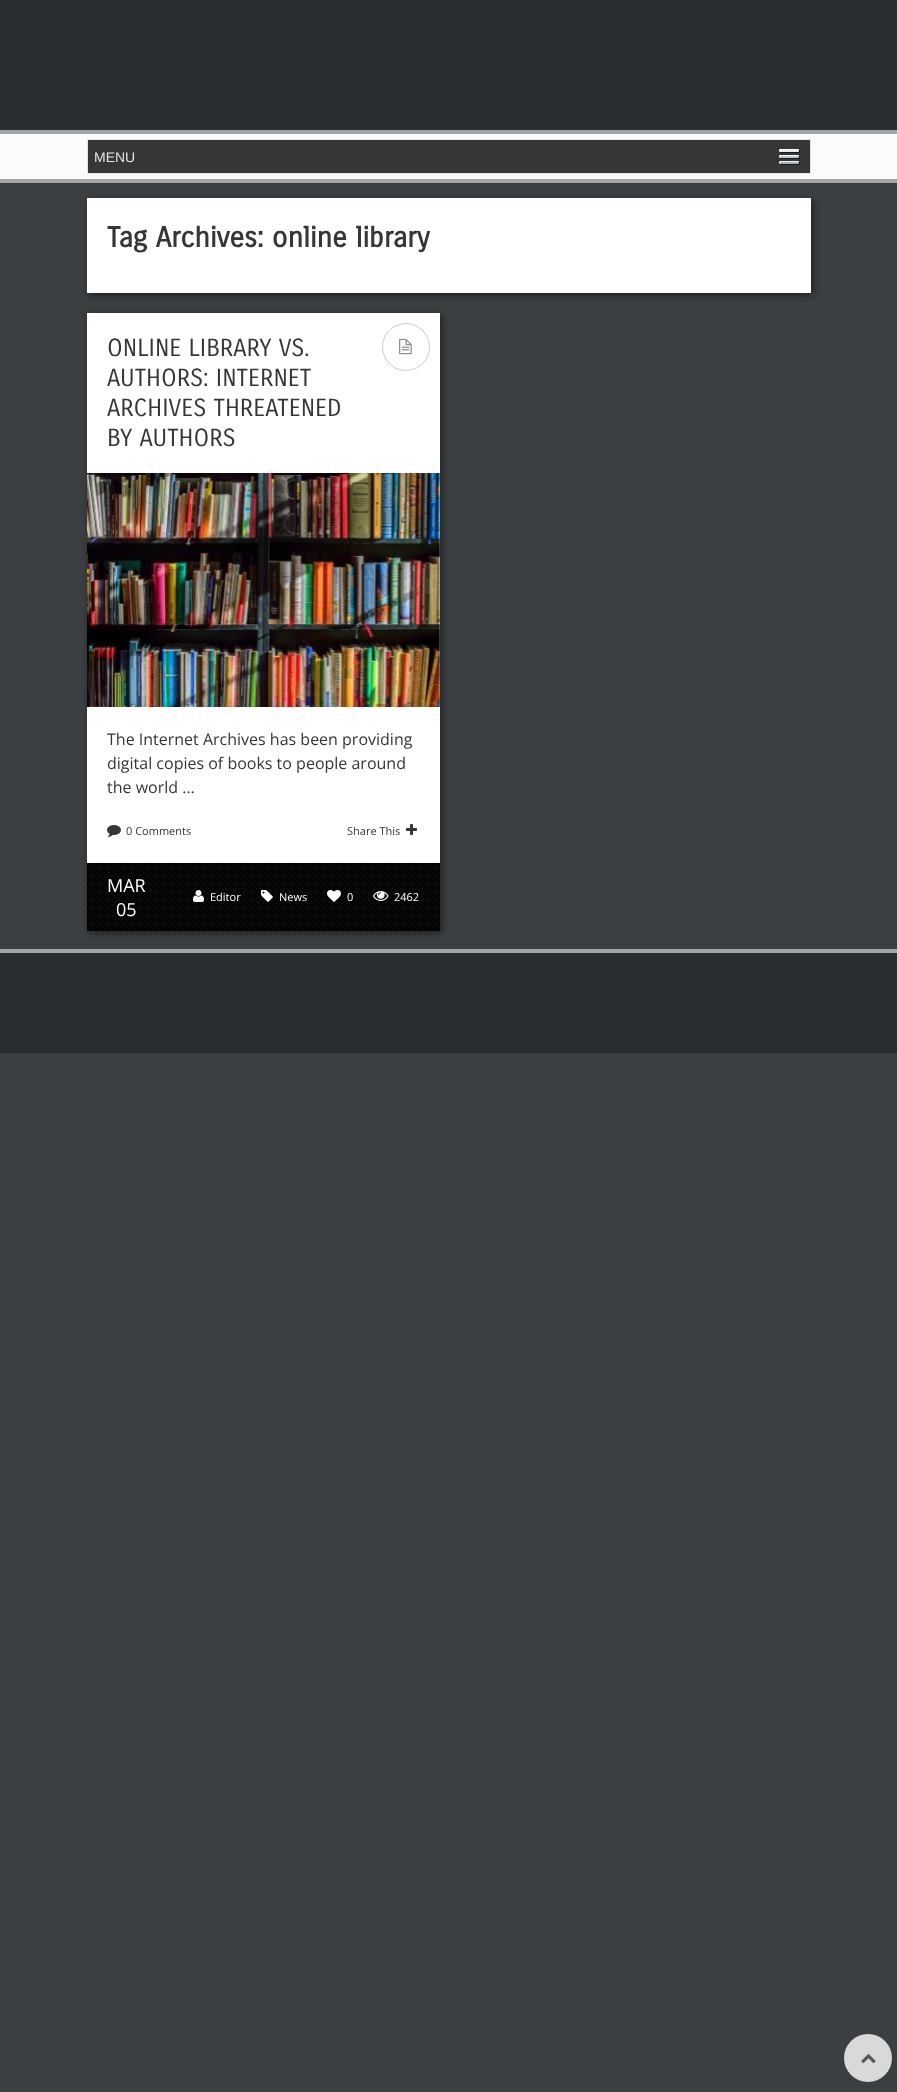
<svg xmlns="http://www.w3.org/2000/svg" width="897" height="2092">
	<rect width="100%" height="100%" fill="#3B3F41" />
	<rect x="0" y="0" width="897" height="130" fill="#2B2E30" />
	<rect x="0" y="134" width="897" height="45" fill="#FBFBFB" />
	<rect x="0" y="130" width="897" height="4" fill="#A3A6A8" />
	<rect x="0" y="179" width="897" height="4" fill="#A3A6A8" />
	<rect x="88" y="140" width="722" height="33" fill="#363636" />
	<image x="779" y="149" width="21" height="16" href="assets/img1.png" />
	<rect x="87.5" y="139.5" width="723" height="34" fill="none" stroke="#E3E4E4" />
	<text x="94" y="162" font-family="Liberation Sans" font-size="14" fill="#E2E2E2">MENU</text>
	<rect x="89" y="200" width="724" height="95" fill="#000000" fill-opacity="0.5" filter="blur(3.5px)" />
	<rect x="87" y="198" width="724" height="95" fill="#FFFFFF" />
	<text x="107" y="247" font-family="Carrois Gothic" font-size="28" font-weight="700" fill="#363636">Tag Archives: online library</text>
	<rect x="89" y="315" width="353" height="618" fill="#000000" fill-opacity="0.5" filter="blur(3.5px)" />
	<rect x="87" y="313" width="353" height="550" fill="#FFFFFF" />
	<g font-family="Carrois Gothic" font-size="24" fill="#363636">
		<text x="107" y="356">ONLINE LIBRARY VS.</text>
		<text x="107" y="386">AUTHORS: INTERNET</text>
		<text x="107" y="416">ARCHIVES THREATENED</text>
		<text x="107" y="446">BY AUTHORS</text>
	</g>
	<circle cx="406" cy="347" r="23.5" fill="none" stroke="#CCCCCC" />
	<image x="399" y="338" width="13" height="17" href="assets/img2.png" />
	<image x="87" y="473" width="353" height="234" href="assets/img3.png" />
	<g font-family="Open Sans" font-size="16" fill="#363636">
		<text x="107" y="745">The Internet Archives has been providing</text>
		<text x="107" y="769">digital copies of books to people around</text>
		<text x="107" y="793">the world ...</text>
	</g>
	<image x="107" y="825" width="14" height="12" href="assets/img4.png" />
	<g font-family="Open Sans" font-size="11" fill="#363636">
		<text x="126" y="835">0 Comments</text>
		<text x="347" y="835">Share This</text>
	</g>
	<image x="406" y="824" width="11" height="11" href="assets/img5.png" />
	<rect x="87" y="863" width="353" height="68" fill="#000000" />
	<image x="87" y="863" width="353" height="68" href="assets/img6.png" />
	<g font-family="Open Sans" font-size="18" fill="#FFFFFF">
		<text x="107" y="892">MAR</text>
		<text x="116" y="916">05</text>
	</g>
	<image x="193" y="890" width="11" height="12" href="assets/img7.png" />
	<text x="210" y="901" font-family="Open Sans" font-size="11" fill="#FFFFFF">Editor</text>
	<image x="261" y="890" width="12" height="12" href="assets/img8.png" />
	<text x="279" y="901" font-family="Open Sans" font-size="11" fill="#FFFFFF">News</text>
	<image x="327" y="890" width="14" height="12" href="assets/img9.png" />
	<text x="347" y="901" font-family="Open Sans" font-size="11" fill="#FFFFFF">0</text>
	<image x="373" y="891" width="16" height="10" href="assets/img10.png" />
	<text x="394" y="901" font-family="Open Sans" font-size="11" fill="#FFFFFF">2462</text>
	<rect x="0" y="953" width="897" height="100" fill="#2B2E30" />
	<rect x="0" y="949" width="897" height="4" fill="#A3A6A8" />
	<circle cx="868" cy="2058" r="24" fill="#D8D9D9" />
	<image x="861" y="2054" width="15" height="9" href="assets/img11.png" />
</svg>
